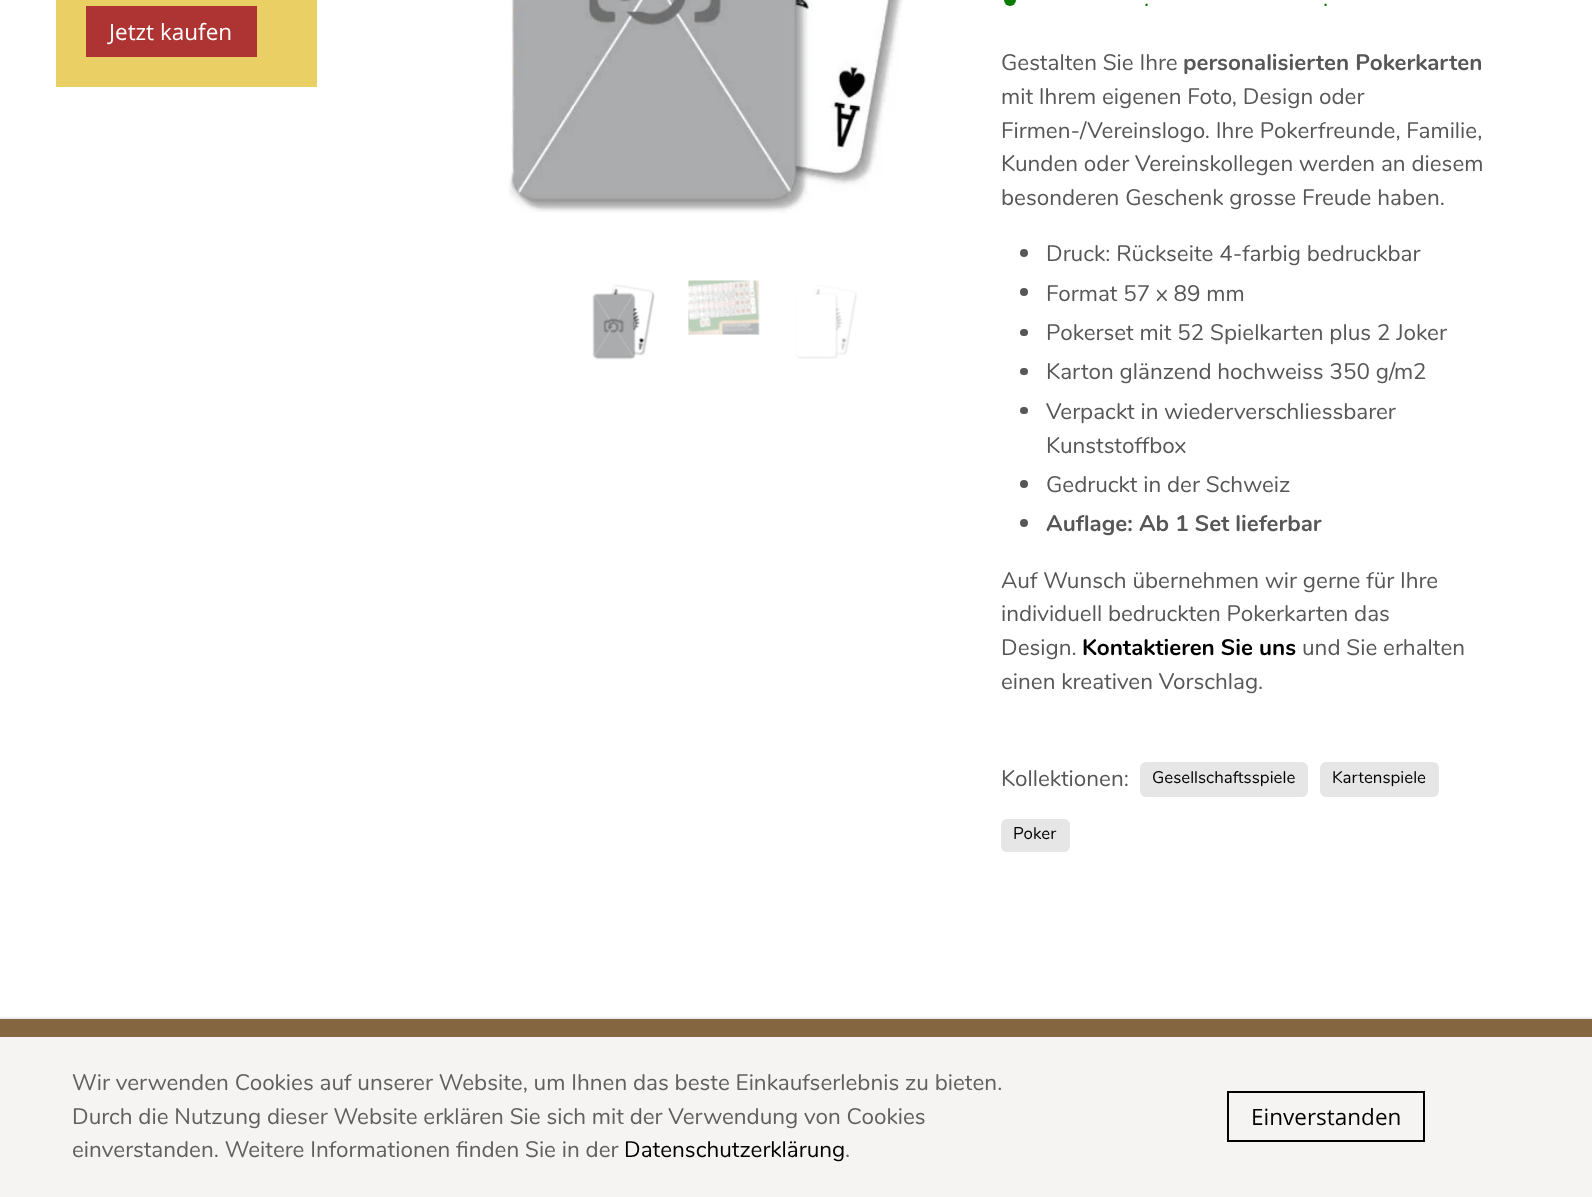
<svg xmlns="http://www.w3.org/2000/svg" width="1592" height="1197">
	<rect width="100%" height="100%" fill="#FFFFFF" />
	<rect x="56" y="0" width="261" height="87" fill="#EAD064" />
	<rect x="86" y="6" width="171" height="51" fill="#AE3333" />
	<text x="109" y="40" font-family="Open Sans" font-size="22.5" fill="#FFFFFF">Jetzt kaufen</text>
	<image x="508" y="0" width="395" height="213" href="assets/img1.png" />
	<image x="592" y="284" width="63" height="76" href="assets/img2.png" />
	<image x="688" y="280" width="72" height="55" href="assets/img3.png" />
	<image x="795" y="285" width="62" height="74" href="assets/img4.png" />
	<circle cx="1010" cy="0" r="6" fill="#097C00" />
	<g font-family="Nunito" font-size="22.5" fill="#097C00">
		<text x="1144" y="6">.</text>
		<text x="1323" y="6">.</text>
	</g>
	<text x="1001" y="70" font-family="Nunito" font-size="22.5" fill="#585757">Gestalten Sie Ihre</text>
	<text x="1183" y="70" font-family="Nunito" font-size="22.5" font-weight="700" fill="#585757">personalisierten Pokerkarten</text>
	<g font-family="Nunito" font-size="22.5" fill="#585757">
		<text x="1001" y="104">mit Ihrem eigenen Foto, Design oder</text>
		<text x="1001" y="138">Firmen-/Vereinslogo. Ihre Pokerfreunde, Familie,</text>
		<text x="1001" y="171">Kunden oder Vereinskollegen werden an diesem</text>
		<text x="1001" y="205">besonderen Geschenk grosse Freude haben.</text>
	</g>
	<circle cx="1024" cy="253" r="4" fill="#585757" />
	<text x="1046" y="261" font-family="Nunito" font-size="22.5" fill="#585757">Druck: Rückseite 4-farbig bedruckbar</text>
	<circle cx="1024" cy="292" r="4" fill="#585757" />
	<text x="1046" y="301" font-family="Nunito" font-size="22.5" fill="#585757">Format 57 x 89 mm</text>
	<rect x="1020" y="329" width="8" height="7" rx="3.5" fill="#585757" />
	<text x="1046" y="340" font-family="Nunito" font-size="22.5" fill="#585757">Pokerset mit 52 Spielkarten plus 2 Joker</text>
	<rect x="1020" y="368" width="8" height="7" rx="3.5" fill="#585757" />
	<text x="1046" y="379" font-family="Nunito" font-size="22.5" fill="#585757">Karton glänzend hochweiss 350 g/m2</text>
	<rect x="1020" y="407" width="8" height="7" rx="3.5" fill="#585757" />
	<g font-family="Nunito" font-size="22.5" fill="#585757">
		<text x="1046" y="419">Verpackt in wiederverschliessbarer</text>
		<text x="1046" y="453">Kunststoffbox</text>
	</g>
	<circle cx="1024" cy="484" r="4" fill="#585757" />
	<text x="1046" y="492" font-family="Nunito" font-size="22.5" fill="#585757">Gedruckt in der Schweiz</text>
	<circle cx="1024" cy="523" r="4" fill="#585757" />
	<text x="1046" y="531" font-family="Nunito" font-size="22.5" font-weight="700" fill="#585757">Auflage: Ab 1 Set lieferbar</text>
	<g font-family="Nunito" font-size="22.5" fill="#585757">
		<text x="1001" y="588">Auf Wunsch übernehmen wir gerne für Ihre</text>
		<text x="1001" y="621">individuell bedruckten Pokerkarten das</text>
		<text x="1001" y="655">Design.</text>
	</g>
	<text x="1082" y="655" font-family="Nunito" font-size="22.5" font-weight="700" fill="#000000">Kontaktieren Sie uns</text>
	<g font-family="Nunito" font-size="22.5" fill="#585757">
		<text x="1302" y="655">und Sie erhalten</text>
		<text x="1001" y="689">einen kreativen Vorschlag.</text>
		<text x="1001" y="786">Kollektionen:</text>
	</g>
	<rect x="1140" y="762" width="168" height="35" rx="6" fill="#E6E6E6" />
	<text x="1152" y="783" font-family="Nunito" font-size="16.9" fill="#000000">Gesellschaftsspiele</text>
	<rect x="1320" y="762" width="119" height="35" rx="6" fill="#E6E6E6" />
	<text x="1332" y="783" font-family="Nunito" font-size="16.9" fill="#000000">Kartenspiele</text>
	<rect x="1001" y="819" width="69" height="33" rx="6" fill="#E6E6E6" />
	<text x="1013" y="839" font-family="Nunito" font-size="16.9" fill="#000000">Poker</text>
	<rect x="0" y="1019" width="1592" height="18" fill="#846641" />
	<rect x="0" y="1037" width="1592" height="160" fill="#F6F4F2" />
	<rect x="0" y="1017" width="1592" height="2" fill="#EDEDED" />
	<g font-family="Nunito" font-size="22.5" fill="#606060">
		<text x="72" y="1090">Wir verwenden Cookies auf unserer Website, um Ihnen das beste Einkaufserlebnis zu bieten.</text>
		<text x="72" y="1124">Durch die Nutzung dieser Website erklären Sie sich mit der Verwendung von Cookies</text>
		<text x="72" y="1157">einverstanden. Weitere Informationen finden Sie in der</text>
	</g>
	<text x="624" y="1157" font-family="Nunito" font-size="22.5" fill="#000000">Datenschutzerklärung</text>
	<text x="845" y="1157" font-family="Nunito" font-size="22.5" fill="#606060">.</text>
	<rect x="1228" y="1092" width="196" height="49" fill="none" stroke="#000000" stroke-width="2" />
	<text x="1251" y="1125" font-family="Open Sans" font-size="22.5" fill="#000000">Einverstanden</text>
</svg>
